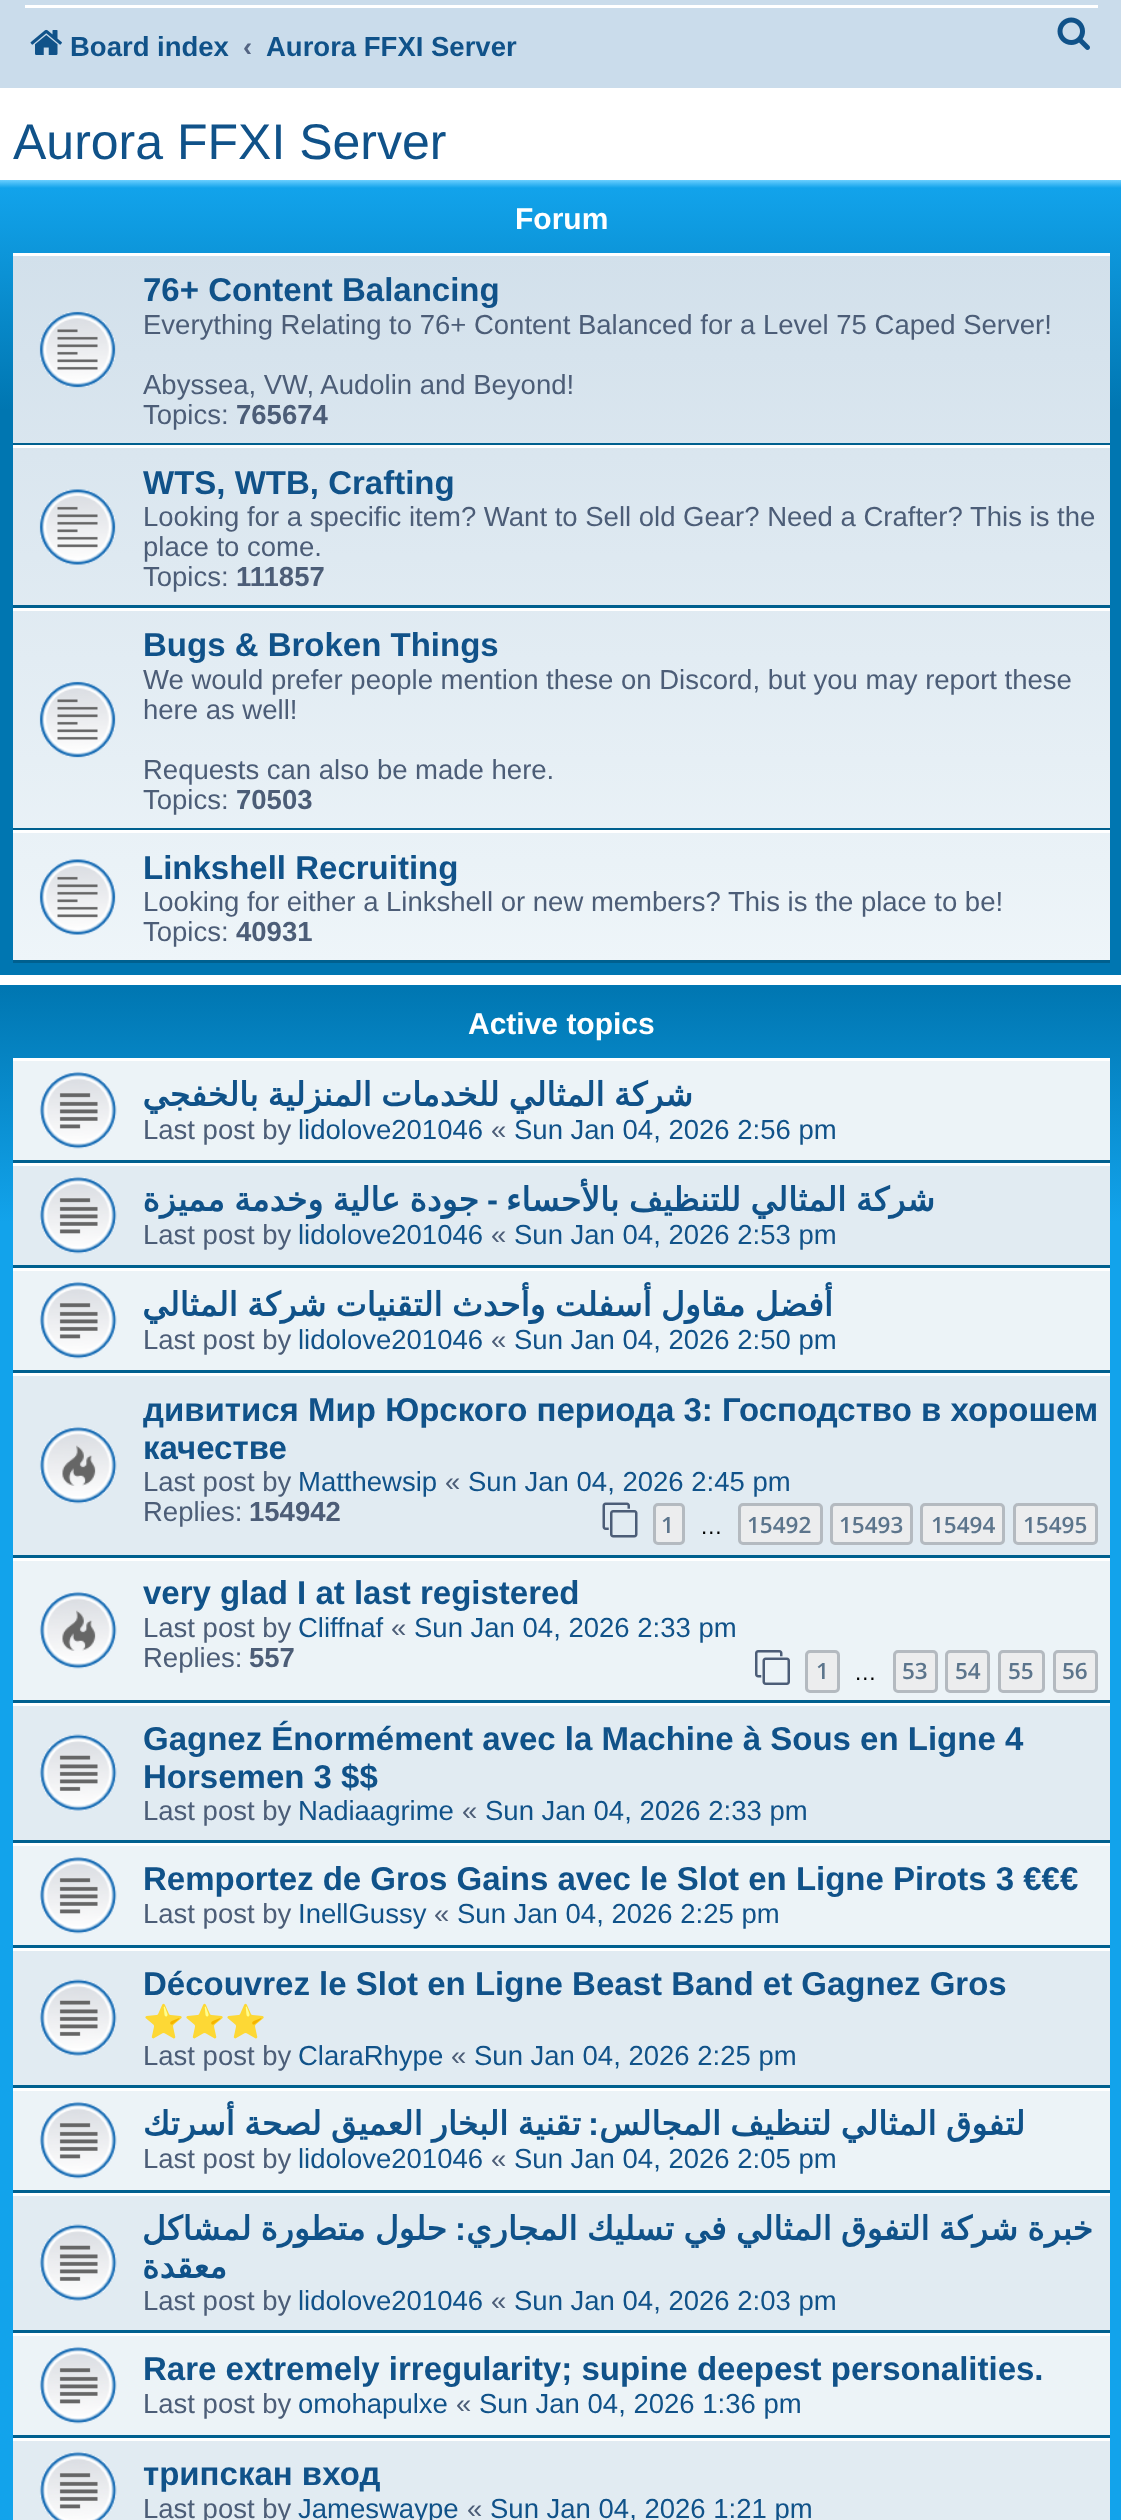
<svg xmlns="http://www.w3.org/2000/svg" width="1121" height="2520">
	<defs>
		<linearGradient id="g1" gradientUnits="userSpaceOnUse" x1="561" y1="180" x2="561" y2="975"><stop offset="0" stop-color="#6ACEFF" /><stop offset="0.01" stop-color="#12A3EB" /><stop offset="0.29" stop-color="#0076B1" /><stop offset="1" stop-color="#0076B1" /></linearGradient>
		<linearGradient id="g2" gradientUnits="userSpaceOnUse" x1="561" y1="252" x2="561" y2="963"><stop offset="0" stop-color="#D2E0EB" /><stop offset="1" stop-color="#EEF5F9" /></linearGradient>
		<linearGradient id="g3" gradientUnits="userSpaceOnUse" x1="561" y1="985" x2="561" y2="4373"><stop offset="0" stop-color="#6ACEFF" /><stop offset="0" stop-color="#0076B1" /><stop offset="0.07" stop-color="#12A3EB" /><stop offset="1" stop-color="#12A3EB" /></linearGradient>
	</defs>
	<rect width="100%" height="100%" fill="#FFFFFF" />
	<rect x="0" y="0" width="1121" height="88" fill="#CADCEB" />
	<rect x="25" y="5" width="1073" height="3" fill="#FFFFFF" />
	<image x="30" y="29" width="32" height="26" href="assets/img1.png" />
	<text x="70" y="56" font-family="Liberation Sans" font-size="27.5" font-weight="700" fill="#105289">Board index</text>
	<text x="243" y="56" font-family="Liberation Sans" font-size="27.5" font-weight="700" fill="#536482">‹</text>
	<text x="266" y="56" font-family="Liberation Sans" font-size="27.5" font-weight="700" fill="#105289">Aurora FFXI Server</text>
	<image x="1057" y="17" width="33" height="33" href="assets/img2.png" />
	<text x="13" y="159" font-family="Liberation Sans" font-size="50" fill="#105289">Aurora FFXI Server</text>
	<rect x="0" y="180" width="1121" height="795" fill="url(#g1)" />
	<text x="515" y="229" font-family="Liberation Sans" font-size="30" font-weight="700" fill="#FFFFFF">Forum</text>
	<rect x="13" y="256" width="1097" height="704" fill="url(#g2)" />
	<rect x="13" y="253" width="1097" height="3" fill="#FFFFFF" />
	<rect x="13" y="443" width="1097" height="2" fill="#00608F" />
	<image x="39" y="311" width="77" height="77" href="assets/img3.png" />
	<text x="143" y="301" font-family="Liberation Sans" font-size="33" font-weight="700" fill="#105289">76+ Content Balancing</text>
	<g font-family="Liberation Sans" font-size="27.5" fill="#4C5D77">
		<text x="143" y="334">Everything Relating to 76+ Content Balanced for a Level 75 Caped Server!</text>
		<text x="143" y="394">Abyssea, VW, Audolin and Beyond!</text>
		<text x="143" y="424">Topics:</text>
	</g>
	<text x="236" y="424" font-family="Liberation Sans" font-size="27.5" font-weight="700" fill="#4C5D77">765674</text>
	<rect x="13" y="445" width="1097" height="3" fill="#FFFFFF" />
	<rect x="13" y="605" width="1097" height="3" fill="#00608F" />
	<image x="39" y="489" width="77" height="76" href="assets/img4.png" />
	<text x="143" y="494" font-family="Liberation Sans" font-size="33" font-weight="700" fill="#105289">WTS, WTB, Crafting</text>
	<g font-family="Liberation Sans" font-size="27.5" fill="#4C5D77">
		<text x="143" y="526">Looking for a specific item? Want to Sell old Gear? Need a Crafter? This is the</text>
		<text x="143" y="556">place to come.</text>
		<text x="143" y="586">Topics:</text>
	</g>
	<text x="236" y="586" font-family="Liberation Sans" font-size="27.5" font-weight="700" fill="#4C5D77">111857</text>
	<rect x="13" y="608" width="1097" height="3" fill="#FFFFFF" />
	<rect x="13" y="828" width="1097" height="2" fill="#00608F" />
	<image x="39" y="681" width="77" height="77" href="assets/img5.png" />
	<text x="143" y="656" font-family="Liberation Sans" font-size="33" font-weight="700" fill="#105289">Bugs &amp; Broken Things</text>
	<g font-family="Liberation Sans" font-size="27.5" fill="#4C5D77">
		<text x="143" y="689">We would prefer people mention these on Discord, but you may report these</text>
		<text x="143" y="719">here as well!</text>
		<text x="143" y="779">Requests can also be made here.</text>
		<text x="143" y="809">Topics:</text>
	</g>
	<text x="236" y="809" font-family="Liberation Sans" font-size="27.5" font-weight="700" fill="#4C5D77">70503</text>
	<rect x="13" y="830" width="1097" height="3" fill="#FFFFFF" />
	<rect x="13" y="960" width="1097" height="3" fill="#00608F" />
	<image x="39" y="859" width="77" height="76" href="assets/img6.png" />
	<text x="143" y="879" font-family="Liberation Sans" font-size="33" font-weight="700" fill="#105289">Linkshell Recruiting</text>
	<g font-family="Liberation Sans" font-size="27.5" fill="#4C5D77">
		<text x="143" y="911">Looking for either a Linkshell or new members? This is the place to be!</text>
		<text x="143" y="941">Topics:</text>
	</g>
	<text x="236" y="941" font-family="Liberation Sans" font-size="27.5" font-weight="700" fill="#4C5D77">40931</text>
	<rect x="0" y="985" width="1121" height="1535" fill="url(#g3)" />
	<text x="468" y="1034" font-family="Liberation Sans" font-size="30" font-weight="700" fill="#FFFFFF">Active topics</text>
	<rect x="13" y="1061" width="1097" height="99" fill="#ECF3F7" />
	<rect x="13" y="1058" width="1097" height="3" fill="#FFFFFF" />
	<rect x="13" y="1160" width="1097" height="3" fill="#00608F" />
	<image x="39" y="1071" width="78" height="78" href="assets/img7.png" />
	<text x="693" y="1106" word-spacing="-1.25" font-family="DejaVu Sans" font-size="33" font-weight="700" direction="rtl" fill="#105289">شركة المثالي للخدمات المنزلية بالخفجي</text>
	<text x="143" y="1139" font-family="Liberation Sans" font-size="27.5" fill="#4C5D77">Last post by</text>
	<text x="298" y="1139" font-family="Liberation Sans" font-size="27.5" fill="#105289">lidolove201046</text>
	<text x="491" y="1139" font-family="Liberation Sans" font-size="27.5" fill="#4C5D77">«</text>
	<text x="514" y="1139" font-family="Liberation Sans" font-size="27.5" fill="#105289">Sun Jan 04, 2026 2:56 pm</text>
	<rect x="13" y="1166" width="1097" height="99" fill="#E1EBF2" />
	<rect x="13" y="1163" width="1097" height="3" fill="#FFFFFF" />
	<rect x="13" y="1265" width="1097" height="3" fill="#00608F" />
	<image x="39" y="1176" width="78" height="78" href="assets/img8.png" />
	<text x="479" y="1211" word-spacing="-1" font-family="DejaVu Sans" font-size="33" font-weight="700" direction="rtl" fill="#105289">جودة عالية وخدمة مميزة</text>
	<text x="498" y="1211" font-family="Liberation Sans" font-size="33" font-weight="700" direction="rtl" fill="#105289">-</text>
	<text x="935" y="1211" word-spacing="-1" font-family="DejaVu Sans" font-size="33" font-weight="700" direction="rtl" fill="#105289">شركة المثالي للتنظيف بالأحساء</text>
	<text x="143" y="1244" font-family="Liberation Sans" font-size="27.5" fill="#4C5D77">Last post by</text>
	<text x="298" y="1244" font-family="Liberation Sans" font-size="27.5" fill="#105289">lidolove201046</text>
	<text x="491" y="1244" font-family="Liberation Sans" font-size="27.5" fill="#4C5D77">«</text>
	<text x="514" y="1244" font-family="Liberation Sans" font-size="27.5" fill="#105289">Sun Jan 04, 2026 2:53 pm</text>
	<rect x="13" y="1271" width="1097" height="99" fill="#ECF3F7" />
	<rect x="13" y="1268" width="1097" height="3" fill="#FFFFFF" />
	<rect x="13" y="1370" width="1097" height="3" fill="#00608F" />
	<image x="39" y="1281" width="78" height="78" href="assets/img7.png" />
	<text x="833" y="1316" word-spacing="-1.25" font-family="DejaVu Sans" font-size="33" font-weight="700" direction="rtl" fill="#105289">أفضل مقاول أسفلت وأحدث التقنيات شركة المثالي</text>
	<text x="143" y="1349" font-family="Liberation Sans" font-size="27.5" fill="#4C5D77">Last post by</text>
	<text x="298" y="1349" font-family="Liberation Sans" font-size="27.5" fill="#105289">lidolove201046</text>
	<text x="491" y="1349" font-family="Liberation Sans" font-size="27.5" fill="#4C5D77">«</text>
	<text x="514" y="1349" font-family="Liberation Sans" font-size="27.5" fill="#105289">Sun Jan 04, 2026 2:50 pm</text>
	<rect x="13" y="1376" width="1097" height="179" fill="#E1EBF2" />
	<rect x="13" y="1373" width="1097" height="3" fill="#FFFFFF" />
	<rect x="13" y="1555" width="1097" height="3" fill="#00608F" />
	<image x="39" y="1426" width="78" height="78" href="assets/img9.png" />
	<g font-family="Liberation Sans" font-size="33" font-weight="700" fill="#105289">
		<text x="143" y="1421">дивитися Мир Юрского периода 3: Господство в хорошем</text>
		<text x="143" y="1459">качестве</text>
	</g>
	<text x="143" y="1491" font-family="Liberation Sans" font-size="27.5" fill="#4C5D77">Last post by</text>
	<text x="298" y="1491" font-family="Liberation Sans" font-size="27.5" fill="#105289">Matthewsip</text>
	<text x="445" y="1491" font-family="Liberation Sans" font-size="27.5" fill="#4C5D77">«</text>
	<text x="468" y="1491" font-family="Liberation Sans" font-size="27.5" fill="#105289">Sun Jan 04, 2026 2:45 pm</text>
	<text x="143" y="1521" font-family="Liberation Sans" font-size="27.5" fill="#4C5D77">Replies:</text>
	<text x="249" y="1521" font-family="Liberation Sans" font-size="27.5" font-weight="700" fill="#4C5D77">154942</text>
	<image x="602" y="1502" width="36" height="36" href="assets/img10.png" />
	<rect x="654.5" y="1504.5" width="29" height="39" rx="3.5" fill="#ECEDEE" stroke="#B4BAC0" stroke-width="3" />
	<text x="661" y="1533" font-family="Open Sans" font-size="22.5" font-weight="600" fill="#5C758C">1</text>
	<text x="700" y="1534" font-family="Liberation Sans" font-size="22.5" fill="#000000">…</text>
	<rect x="739.5" y="1504.5" width="82" height="39" rx="3.5" fill="#ECEDEE" stroke="#B4BAC0" stroke-width="3" />
	<text x="747" y="1533" font-family="Open Sans" font-size="22.5" font-weight="600" fill="#5C758C">15492</text>
	<rect x="831.5" y="1504.5" width="80" height="39" rx="3.5" fill="#ECEDEE" stroke="#B4BAC0" stroke-width="3" />
	<text x="839" y="1533" font-family="Open Sans" font-size="22.5" font-weight="600" fill="#5C758C">15493</text>
	<rect x="921.5" y="1504.5" width="82" height="39" rx="3.5" fill="#ECEDEE" stroke="#B4BAC0" stroke-width="3" />
	<text x="931" y="1533" font-family="Open Sans" font-size="22.5" font-weight="600" fill="#5C758C">15494</text>
	<rect x="1014.5" y="1504.5" width="82" height="39" rx="3.5" fill="#ECEDEE" stroke="#B4BAC0" stroke-width="3" />
	<text x="1023" y="1533" font-family="Open Sans" font-size="22.5" font-weight="600" fill="#5C758C">15495</text>
	<rect x="13" y="1561" width="1097" height="139" fill="#ECF3F7" />
	<rect x="13" y="1558" width="1097" height="3" fill="#FFFFFF" />
	<rect x="13" y="1700" width="1097" height="3" fill="#00608F" />
	<image x="39" y="1591" width="78" height="78" href="assets/img11.png" />
	<text x="143" y="1604" font-family="Liberation Sans" font-size="33" font-weight="700" fill="#105289">very glad I at last registered</text>
	<text x="143" y="1637" font-family="Liberation Sans" font-size="27.5" fill="#4C5D77">Last post by</text>
	<text x="298" y="1637" font-family="Liberation Sans" font-size="27.5" fill="#105289">Cliffnaf</text>
	<text x="391" y="1637" font-family="Liberation Sans" font-size="27.5" fill="#4C5D77">«</text>
	<text x="414" y="1637" font-family="Liberation Sans" font-size="27.5" fill="#105289">Sun Jan 04, 2026 2:33 pm</text>
	<text x="143" y="1667" font-family="Liberation Sans" font-size="27.5" fill="#4C5D77">Replies:</text>
	<text x="249" y="1667" font-family="Liberation Sans" font-size="27.5" font-weight="700" fill="#4C5D77">557</text>
	<image x="755" y="1650" width="35" height="35" href="assets/img12.png" />
	<rect x="806.5" y="1651.5" width="32" height="40" rx="3.5" fill="#ECEDEE" stroke="#B4BAC0" stroke-width="3" />
	<text x="816" y="1679" font-family="Open Sans" font-size="22.5" font-weight="600" fill="#5C758C">1</text>
	<text x="854" y="1680" font-family="Liberation Sans" font-size="22.5" fill="#000000">…</text>
	<rect x="894.5" y="1651.5" width="42" height="40" rx="3.5" fill="#ECEDEE" stroke="#B4BAC0" stroke-width="3" />
	<text x="902" y="1679" font-family="Open Sans" font-size="22.5" font-weight="600" fill="#5C758C">53</text>
	<rect x="946.5" y="1651.5" width="42" height="40" rx="3.5" fill="#ECEDEE" stroke="#B4BAC0" stroke-width="3" />
	<text x="955" y="1679" font-family="Open Sans" font-size="22.5" font-weight="600" fill="#5C758C">54</text>
	<rect x="999.5" y="1651.5" width="44" height="40" rx="3.5" fill="#ECEDEE" stroke="#B4BAC0" stroke-width="3" />
	<text x="1008" y="1679" font-family="Open Sans" font-size="22.5" font-weight="600" fill="#5C758C">55</text>
	<rect x="1054.5" y="1651.5" width="42" height="40" rx="3.5" fill="#ECEDEE" stroke="#B4BAC0" stroke-width="3" />
	<text x="1062" y="1679" font-family="Open Sans" font-size="22.5" font-weight="600" fill="#5C758C">56</text>
	<rect x="13" y="1706" width="1097" height="134" fill="#E1EBF2" />
	<rect x="13" y="1703" width="1097" height="3" fill="#FFFFFF" />
	<rect x="13" y="1840" width="1097" height="3" fill="#00608F" />
	<image x="39" y="1734" width="78" height="77" href="assets/img13.png" />
	<g font-family="Liberation Sans" font-size="33" font-weight="700" fill="#105289">
		<text x="143" y="1750">Gagnez Énormément avec la Machine à Sous en Ligne 4</text>
		<text x="143" y="1788">Horsemen 3 $$</text>
	</g>
	<text x="143" y="1820" font-family="Liberation Sans" font-size="27.5" fill="#4C5D77">Last post by</text>
	<text x="298" y="1820" font-family="Liberation Sans" font-size="27.5" fill="#105289">Nadiaagrime</text>
	<text x="462" y="1820" font-family="Liberation Sans" font-size="27.5" fill="#4C5D77">«</text>
	<text x="485" y="1820" font-family="Liberation Sans" font-size="27.5" fill="#105289">Sun Jan 04, 2026 2:33 pm</text>
	<rect x="13" y="1846" width="1097" height="99" fill="#ECF3F7" />
	<rect x="13" y="1843" width="1097" height="3" fill="#FFFFFF" />
	<rect x="13" y="1945" width="1097" height="3" fill="#00608F" />
	<image x="39" y="1856" width="78" height="78" href="assets/img7.png" />
	<text x="143" y="1890" font-family="Liberation Sans" font-size="33" font-weight="700" fill="#105289">Remportez de Gros Gains avec le Slot en Ligne Pirots 3 €€€</text>
	<text x="143" y="1923" font-family="Liberation Sans" font-size="27.5" fill="#4C5D77">Last post by</text>
	<text x="298" y="1923" font-family="Liberation Sans" font-size="27.5" fill="#105289">InellGussy</text>
	<text x="434" y="1923" font-family="Liberation Sans" font-size="27.5" fill="#4C5D77">«</text>
	<text x="457" y="1923" font-family="Liberation Sans" font-size="27.5" fill="#105289">Sun Jan 04, 2026 2:25 pm</text>
	<rect x="13" y="1951" width="1097" height="134" fill="#E1EBF2" />
	<rect x="13" y="1948" width="1097" height="3" fill="#FFFFFF" />
	<rect x="13" y="2085" width="1097" height="3" fill="#00608F" />
	<image x="39" y="1979" width="78" height="77" href="assets/img14.png" />
	<text x="143" y="1995" font-family="Liberation Sans" font-size="33" font-weight="700" fill="#105289">Découvrez le Slot en Ligne Beast Band et Gagnez Gros</text>
	<text x="143" y="2033" font-family="Noto Color Emoji" font-size="33" font-weight="700" fill="#105289">⭐⭐⭐</text>
	<text x="143" y="2065" font-family="Liberation Sans" font-size="27.5" fill="#4C5D77">Last post by</text>
	<text x="298" y="2065" font-family="Liberation Sans" font-size="27.5" fill="#105289">ClaraRhype</text>
	<text x="451" y="2065" font-family="Liberation Sans" font-size="27.5" fill="#4C5D77">«</text>
	<text x="474" y="2065" font-family="Liberation Sans" font-size="27.5" fill="#105289">Sun Jan 04, 2026 2:25 pm</text>
	<rect x="13" y="2091" width="1097" height="99" fill="#ECF3F7" />
	<rect x="13" y="2088" width="1097" height="3" fill="#FFFFFF" />
	<rect x="13" y="2190" width="1097" height="3" fill="#00608F" />
	<image x="39" y="2101" width="78" height="78" href="assets/img7.png" />
	<text x="581" y="2135" word-spacing="-1.25" font-family="DejaVu Sans" font-size="33" font-weight="700" direction="rtl" fill="#105289">تقنية البخار العميق لصحة أسرتك</text>
	<text x="599" y="2135" font-family="Liberation Sans" font-size="33" font-weight="700" direction="rtl" fill="#105289">:</text>
	<text x="1025" y="2135" word-spacing="-1.25" font-family="DejaVu Sans" font-size="33" font-weight="700" direction="rtl" fill="#105289">لتفوق المثالي لتنظيف المجالس</text>
	<text x="143" y="2168" font-family="Liberation Sans" font-size="27.5" fill="#4C5D77">Last post by</text>
	<text x="298" y="2168" font-family="Liberation Sans" font-size="27.5" fill="#105289">lidolove201046</text>
	<text x="491" y="2168" font-family="Liberation Sans" font-size="27.5" fill="#4C5D77">«</text>
	<text x="514" y="2168" font-family="Liberation Sans" font-size="27.5" fill="#105289">Sun Jan 04, 2026 2:05 pm</text>
	<rect x="13" y="2196" width="1097" height="134" fill="#E1EBF2" />
	<rect x="13" y="2193" width="1097" height="3" fill="#FFFFFF" />
	<rect x="13" y="2330" width="1097" height="3" fill="#00608F" />
	<image x="39" y="2224" width="78" height="77" href="assets/img13.png" />
	<text x="447" y="2240" word-spacing="-1.25" font-family="DejaVu Sans" font-size="33" font-weight="700" direction="rtl" fill="#105289">حلول متطورة لمشاكل</text>
	<text x="466" y="2240" font-family="Liberation Sans" font-size="33" font-weight="700" direction="rtl" fill="#105289">:</text>
	<g font-family="DejaVu Sans" font-size="33" font-weight="700" direction="rtl" fill="#105289">
		<text x="1093" y="2240" word-spacing="-1.25">خبرة شركة التفوق المثالي في تسليك المجاري</text>
		<text x="227" y="2278">معقدة</text>
	</g>
	<text x="143" y="2310" font-family="Liberation Sans" font-size="27.5" fill="#4C5D77">Last post by</text>
	<text x="298" y="2310" font-family="Liberation Sans" font-size="27.5" fill="#105289">lidolove201046</text>
	<text x="491" y="2310" font-family="Liberation Sans" font-size="27.5" fill="#4C5D77">«</text>
	<text x="514" y="2310" font-family="Liberation Sans" font-size="27.5" fill="#105289">Sun Jan 04, 2026 2:03 pm</text>
	<rect x="13" y="2336" width="1097" height="99" fill="#ECF3F7" />
	<rect x="13" y="2333" width="1097" height="3" fill="#FFFFFF" />
	<rect x="13" y="2435" width="1097" height="3" fill="#00608F" />
	<image x="39" y="2346" width="78" height="78" href="assets/img7.png" />
	<text x="143" y="2380" font-family="Liberation Sans" font-size="33" font-weight="700" fill="#105289">Rare extremely irregularity; supine deepest personalities.</text>
	<text x="143" y="2413" font-family="Liberation Sans" font-size="27.5" fill="#4C5D77">Last post by</text>
	<text x="298" y="2413" font-family="Liberation Sans" font-size="27.5" fill="#105289">omohapulxe</text>
	<text x="456" y="2413" font-family="Liberation Sans" font-size="27.5" fill="#4C5D77">«</text>
	<text x="479" y="2413" font-family="Liberation Sans" font-size="27.5" fill="#105289">Sun Jan 04, 2026 1:36 pm</text>
	<rect x="13" y="2441" width="1097" height="79" fill="#E1EBF2" />
	<rect x="13" y="2438" width="1097" height="3" fill="#FFFFFF" />
	<image x="39" y="2451" width="78" height="69" href="assets/img15.png" />
	<text x="143" y="2485" font-family="Liberation Sans" font-size="33" font-weight="700" fill="#105289">трипскан вход</text>
	<text x="143" y="2518" font-family="Liberation Sans" font-size="27.5" fill="#4C5D77">Last post by</text>
	<text x="298" y="2518" font-family="Liberation Sans" font-size="27.5" fill="#105289">Jameswaype</text>
	<text x="467" y="2518" font-family="Liberation Sans" font-size="27.5" fill="#4C5D77">«</text>
	<text x="490" y="2518" font-family="Liberation Sans" font-size="27.5" fill="#105289">Sun Jan 04, 2026 1:21 pm</text>
</svg>
